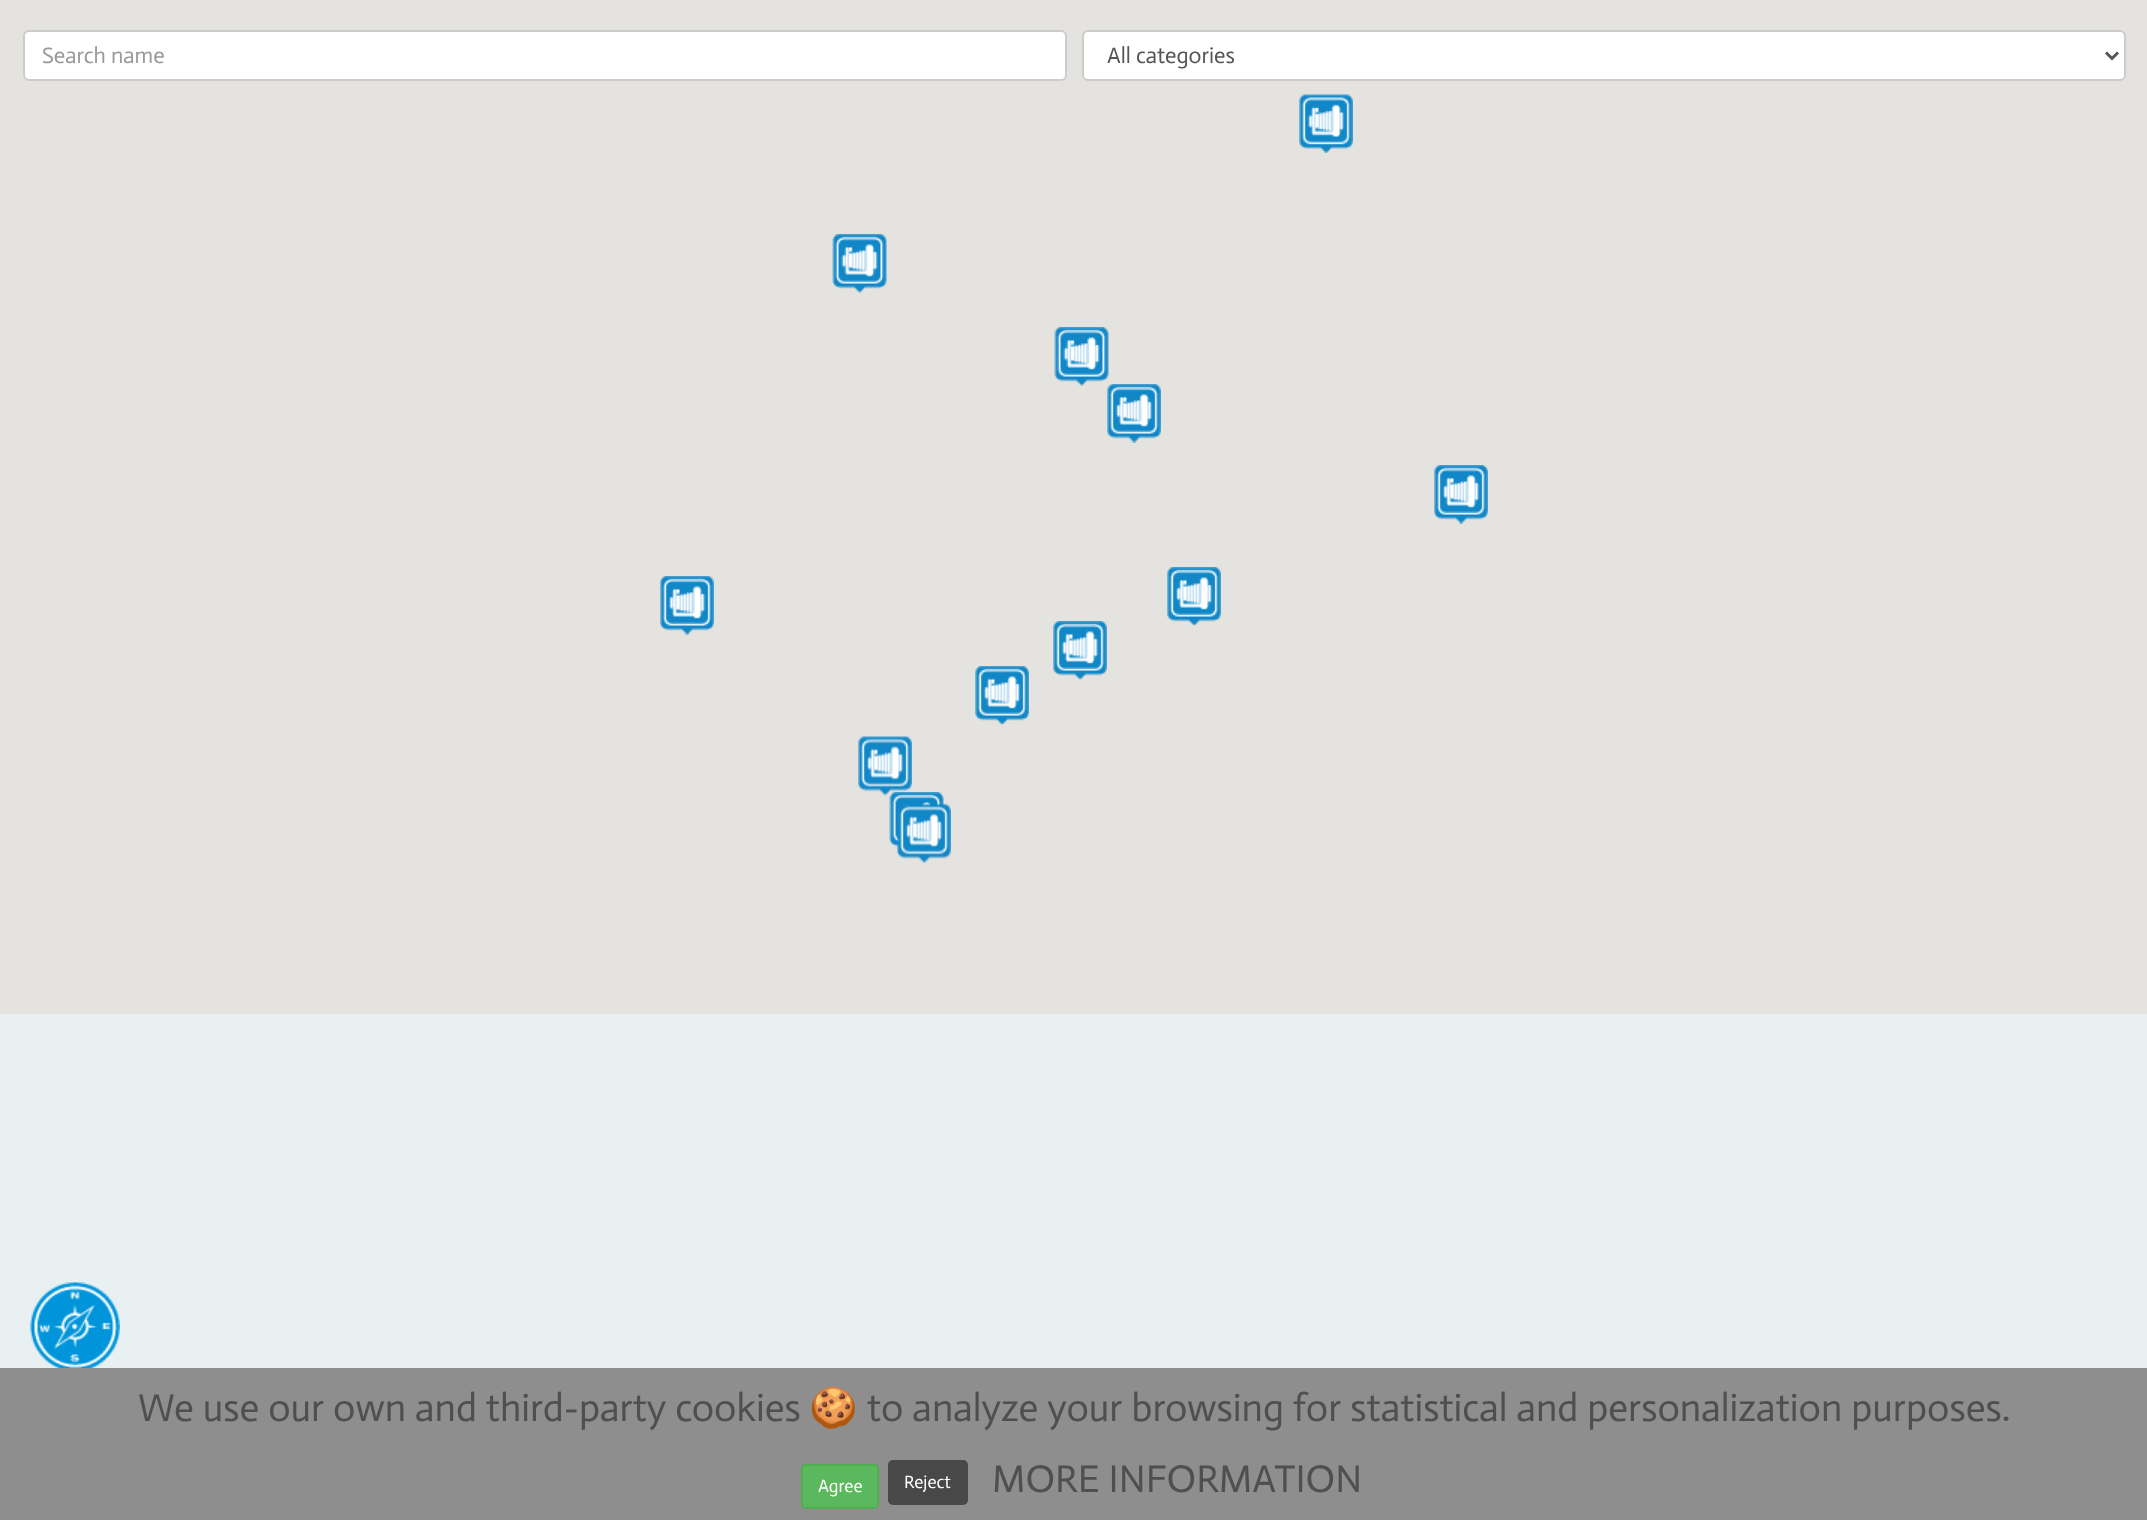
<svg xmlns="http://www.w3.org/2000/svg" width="2147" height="1520">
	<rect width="100%" height="100%" fill="#E9F0F2" />
	<rect x="0" y="0" width="2147" height="1014" fill="#E5E3DF" />
	<image x="1299" y="94" width="54" height="59" href="assets/img1.png" />
	<image x="832" y="234" width="55" height="59" href="assets/img2.png" />
	<image x="1054" y="327" width="55" height="59" href="assets/img2.png" />
	<image x="1107" y="384" width="54" height="59" href="assets/img3.png" />
	<image x="1434" y="465" width="54" height="59" href="assets/img3.png" />
	<image x="660" y="576" width="54" height="59" href="assets/img3.png" />
	<image x="1167" y="567" width="54" height="59" href="assets/img4.png" />
	<image x="1053" y="621" width="54" height="59" href="assets/img4.png" />
	<image x="975" y="666" width="54" height="59" href="assets/img4.png" />
	<image x="858" y="736" width="54" height="60" href="assets/img5.png" />
	<image x="889" y="792" width="55" height="55" href="assets/img6.png" />
	<image x="897" y="803" width="54" height="60" href="assets/img7.png" />
	<rect x="24" y="31" width="1042" height="49" rx="5" fill="#FFFFFF" stroke="#CCCCCC" stroke-width="2" />
	<text x="42" y="63" font-family="Actor" font-size="22.5" fill="#999999">Search name</text>
	<rect x="1083" y="31" width="1042" height="49" rx="5" fill="#FFFFFF" stroke="#CCCCCC" stroke-width="2" />
	<path d="M2106 52.5L2112 58.5L2118 52.5" fill="none" stroke="#555555" stroke-width="3" />
	<text x="1107" y="63" font-family="Actor" font-size="22.5" fill="#555555">All categories</text>
	<rect x="30" y="1283" width="90" height="88" rx="44" fill="#FFFFFF" />
	<image x="30" y="1282" width="90" height="86" href="assets/img8.png" />
	<rect x="0" y="1368" width="2147" height="152" fill="#8E8E8E" />
	<text x="138" y="1421" font-family="Actor" font-size="39" fill="#514E4E">We use our own and third-party cookies</text>
	<text x="809" y="1421" font-family="Noto Color Emoji" font-size="39" fill="#514E4E">🍪</text>
	<text x="867" y="1421" font-family="Actor" font-size="39" fill="#514E4E">to analyze your browsing for statistical and personalization purposes.</text>
	<rect x="802" y="1465" width="76" height="43" rx="4" fill="#5CB85C" stroke="#4CAE4C" stroke-width="2" />
	<text x="818" y="1492" font-family="Actor" font-size="18" fill="#FFFFFF">Agree</text>
	<rect x="889" y="1461" width="78" height="43" rx="4" fill="#484848" stroke="#484848" stroke-width="2" />
	<text x="904" y="1488" font-family="Actor" font-size="18" fill="#FFFFFF">Reject</text>
	<text x="992" y="1492" font-family="Actor" font-size="39" fill="#514E4E">MORE INFORMATION</text>
</svg>
